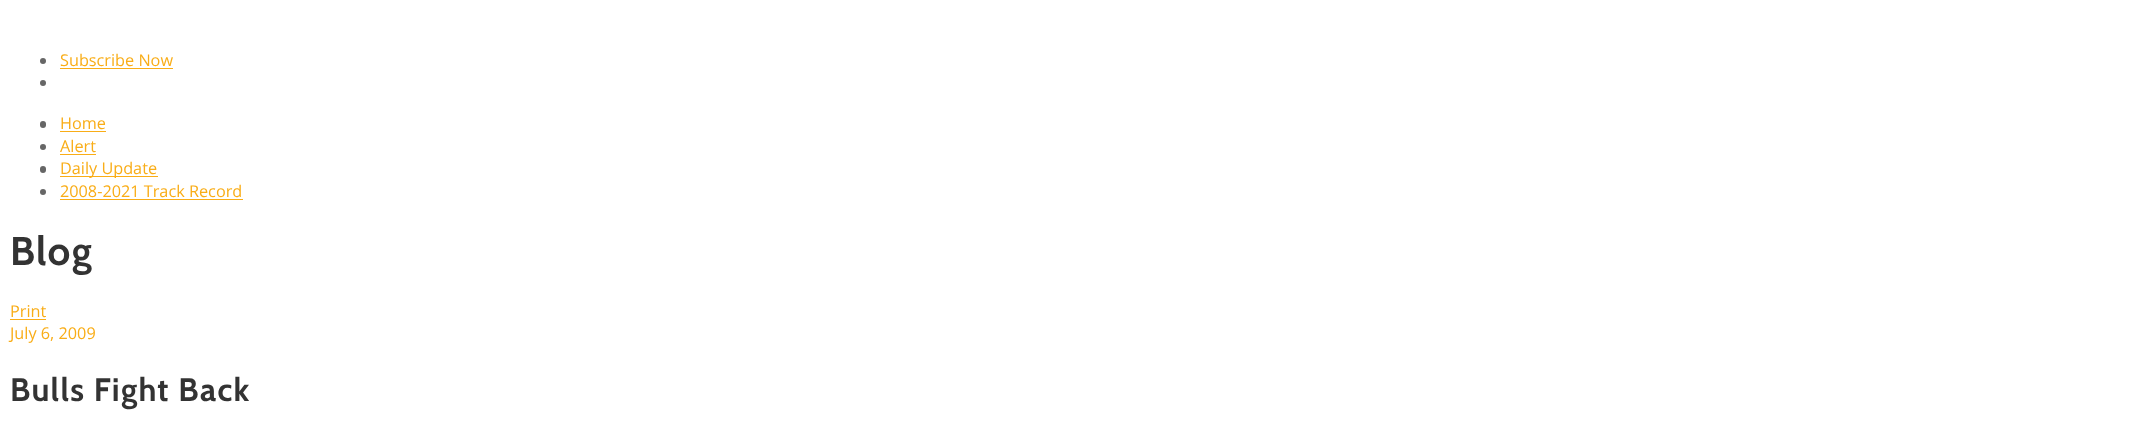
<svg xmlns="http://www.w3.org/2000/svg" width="2144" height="424">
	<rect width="100%" height="100%" fill="#FFFFFF" />
	<circle cx="43" cy="61" r="3" fill="#666666" />
	<text x="60" y="66" font-family="Open Sans" font-size="16.25" fill="#F9AD17">Subscribe Now</text>
	<rect x="60" y="68" width="113" height="1" fill="#F9AD17" />
	<circle cx="43" cy="83" r="3" fill="#666666" />
	<rect x="40" y="121" width="6" height="7" rx="3" fill="#666666" />
	<text x="60" y="129" font-family="Open Sans" font-size="16.25" fill="#F9AD17">Home</text>
	<rect x="60" y="131" width="46" height="1" fill="#F9AD17" />
	<circle cx="43" cy="147" r="3" fill="#666666" />
	<text x="60" y="152" font-family="Open Sans" font-size="16.25" fill="#F9AD17">Alert</text>
	<rect x="60" y="154" width="36" height="1" fill="#F9AD17" />
	<rect x="40" y="166" width="6" height="7" rx="3" fill="#666666" />
	<rect x="60" y="176" width="98" height="1" fill="#F9AD17" />
	<text x="60" y="174" font-family="Open Sans" font-size="16.25" fill="#F9AD17">Daily Update</text>
	<circle cx="43" cy="192" r="3" fill="#666666" />
	<text x="60" y="197" font-family="Open Sans" font-size="16.25" fill="#F9AD17">2008-2021 Track Record</text>
	<rect x="60" y="199" width="183" height="1" fill="#F9AD17" />
	<text x="10" y="265" font-family="Cabin" font-size="40" font-weight="700" letter-spacing="1.25" fill="#333333">Blog</text>
	<text x="10" y="317" font-family="Open Sans" font-size="16.25" fill="#F9AD17">Print</text>
	<rect x="10" y="319" width="36" height="1" fill="#F9AD17" />
	<text x="10" y="339" font-family="Open Sans" font-size="16.25" fill="#F9AD17">July 6, 2009</text>
	<text x="10" y="401" font-family="Cabin" font-size="32.5" font-weight="700" letter-spacing="1.25" fill="#333333">Bulls Fight Back</text>
</svg>
